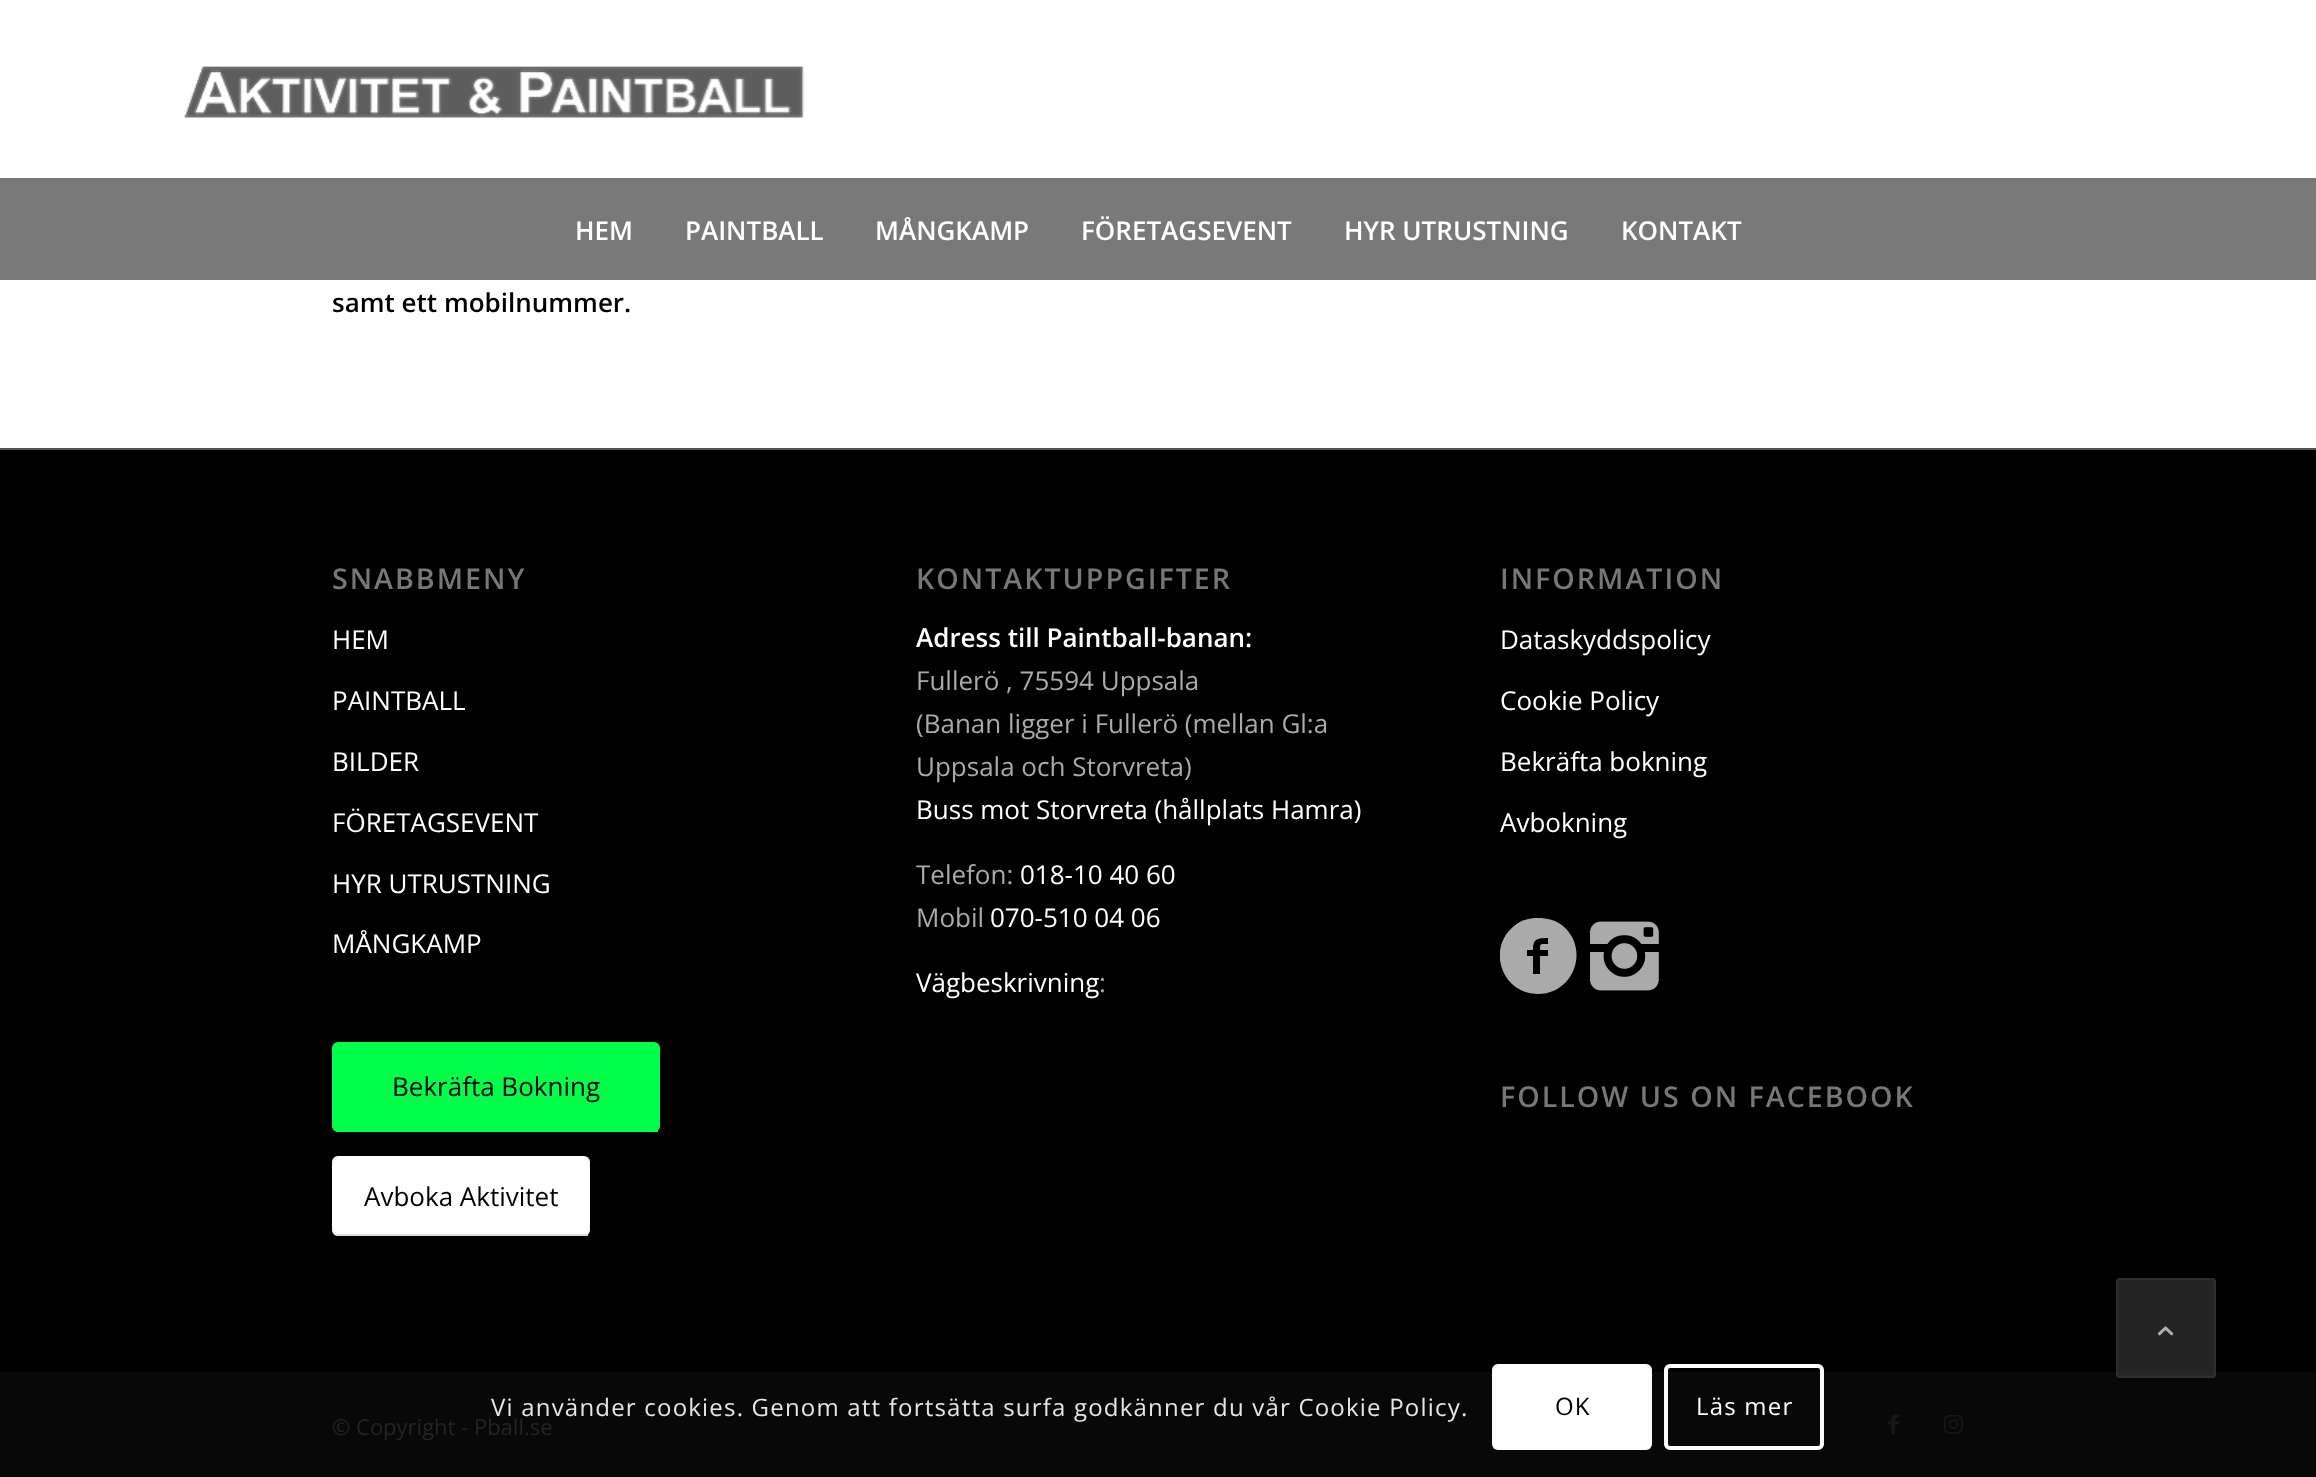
<svg xmlns="http://www.w3.org/2000/svg" width="2316" height="1477">
	<defs>
		<clipPath id="clip1"><rect x="916" y="540" width="484" height="486" /></clipPath>
		<clipPath id="clip2"><rect x="1500" y="914" width="484" height="82" /></clipPath>
	</defs>
	<rect width="100%" height="100%" fill="#FFFFFF" />
	<image x="184" y="66" width="620" height="52" href="assets/img1.png" />
	<rect x="0" y="178" width="2316" height="102" fill="#797979" />
	<g font-family="Open Sans" font-size="26" font-weight="600" fill="#FFFFFF">
		<text x="575" y="240">HEM</text>
		<text x="685" y="240">PAINTBALL</text>
		<text x="875" y="240">MÅNGKAMP</text>
		<text x="1081" y="240">FÖRETAGSEVENT</text>
		<text x="1344" y="240">HYR UTRUSTNING</text>
		<text x="1621" y="240">KONTAKT</text>
	</g>
	<text x="332" y="312" font-family="Open Sans" font-size="26" font-weight="600" fill="#000000">samt ett mobilnummer.</text>
	<rect x="0" y="450" width="2316" height="922" fill="#000000" />
	<rect x="0" y="448" width="2316" height="2" fill="#555555" />
	<text x="332" y="589" font-family="Open Sans" font-size="28.6" font-weight="600" letter-spacing="2" fill="#777777">SNABBMENY</text>
	<g font-family="Open Sans" font-size="26" fill="#FFFFFF">
		<text x="332" y="649">HEM</text>
		<text x="332" y="710">PAINTBALL</text>
		<text x="332" y="771">BILDER</text>
		<text x="332" y="832">FÖRETAGSEVENT</text>
		<text x="332" y="893">HYR UTRUSTNING</text>
		<text x="332" y="953">MÅNGKAMP</text>
	</g>
	<rect x="332" y="1042" width="328" height="90" rx="6" fill="#00FF48" />
	<rect x="336" y="1130" width="322" height="2" fill="#00FF48" />
	<text x="392" y="1096" font-family="Open Sans" font-size="26" fill="#000000">Bekräfta Bokning</text>
	<rect x="332" y="1156" width="258" height="80" rx="6" fill="#FFFFFF" />
	<rect x="336" y="1234" width="252" height="2" fill="#DDDDDD" />
	<text x="364" y="1206" font-family="Open Sans" font-size="26" fill="#000000">Avboka Aktivitet</text>
	<text x="916" y="589" font-family="Open Sans" font-size="28.6" font-weight="600" letter-spacing="2" fill="#777777">KONTAKTUPPGIFTER</text>
	<text x="916" y="647" font-family="Open Sans" font-size="26" font-weight="600" fill="#FFFFFF">Adress till Paintball-banan:</text>
	<g font-family="Open Sans" font-size="26" fill="#AAAAAA">
		<text x="916" y="690">Fullerö , 75594 Uppsala</text>
		<text x="916" y="733">(Banan ligger i Fullerö (mellan Gl:a</text>
		<text x="916" y="776">Uppsala och Storvreta)</text>
	</g>
	<text x="916" y="819" font-family="Open Sans" font-size="26" fill="#FFFFFF">Buss mot Storvreta (hållplats Hamra)</text>
	<g clip-path="url(#clip1)">
		<text x="916" y="884" font-family="Open Sans" font-size="26" fill="#AAAAAA">Telefon:</text>
	</g>
	<text x="1020" y="884" font-family="Open Sans" font-size="26" fill="#FFFFFF">018-10 40 60</text>
	<text x="916" y="927" font-family="Open Sans" font-size="26" fill="#AAAAAA">Mobil</text>
	<g font-family="Open Sans" font-size="26" fill="#FFFFFF">
		<text x="990" y="927">070-510 04 06</text>
		<text x="916" y="992">Vägbeskrivning</text>
	</g>
	<text x="1099" y="992" font-family="Open Sans" font-size="26" fill="#AAAAAA">:</text>
	<text x="1500" y="589" font-family="Open Sans" font-size="28.6" font-weight="600" letter-spacing="2" fill="#777777">INFORMATION</text>
	<g font-family="Open Sans" font-size="26" fill="#FFFFFF">
		<text x="1500" y="649">Dataskyddspolicy</text>
		<text x="1500" y="710">Cookie Policy</text>
		<text x="1500" y="771">Bekräfta bokning</text>
		<text x="1500" y="832">Avbokning</text>
	</g>
	<g clip-path="url(#clip2)">
		<path d="M1538 918C1547 918 1556 920 1563 926C1590 949 1574 994 1538 994C1502 994 1486 949 1514 926C1521 920 1529 918 1538 918ZM1548 944V938C1537 938 1533 939 1533 950H1527V956H1533V974H1540V956H1548V950H1540C1540 943 1540 944 1548 944Z" fill="#AAAAAA" />
	</g>
	<image x="1590" y="921" width="69" height="70" href="assets/img2.png" />
	<text x="1500" y="1107" font-family="Open Sans" font-size="28.6" font-weight="600" letter-spacing="2" fill="#777777">FOLLOW US ON FACEBOOK</text>
	<rect x="0" y="1372" width="2316" height="105" fill="#080808" />
	<text x="332" y="1435" font-family="Open Sans" font-size="22" fill="#242424">© Copyright - Pball.se</text>
	<image x="1888" y="1414" width="11" height="21" href="assets/img3.png" />
	<image x="1944" y="1414" width="19" height="20" href="assets/img4.png" />
	<rect x="2116" y="1278" width="100" height="100" rx="4" fill="#333333" fill-opacity="0.7" />
	<rect x="2117" y="1279" width="98" height="98" rx="3" fill="none" stroke="#333333" stroke-opacity="0.7" stroke-width="2" />
	<image x="2158" y="1326" width="16" height="10" href="assets/img5.png" />
	<text x="491" y="1416" font-family="Open Sans" font-size="24" letter-spacing="1.2" fill="#E6E6E6">Vi använder cookies. Genom att fortsätta surfa godkänner du vår Cookie Policy.</text>
	<rect x="1492" y="1364" width="160" height="86" rx="6" fill="#FFFFFF" />
	<text x="1555" y="1415" font-family="Open Sans" font-size="24" letter-spacing="1.2" fill="#000000">OK</text>
	<rect x="1666" y="1366" width="156" height="82" rx="4" fill="none" stroke="#FFFFFF" stroke-width="4" />
	<text x="1696" y="1415" font-family="Open Sans" font-size="24" letter-spacing="1.2" fill="#FFFFFF">Läs mer</text>
</svg>
